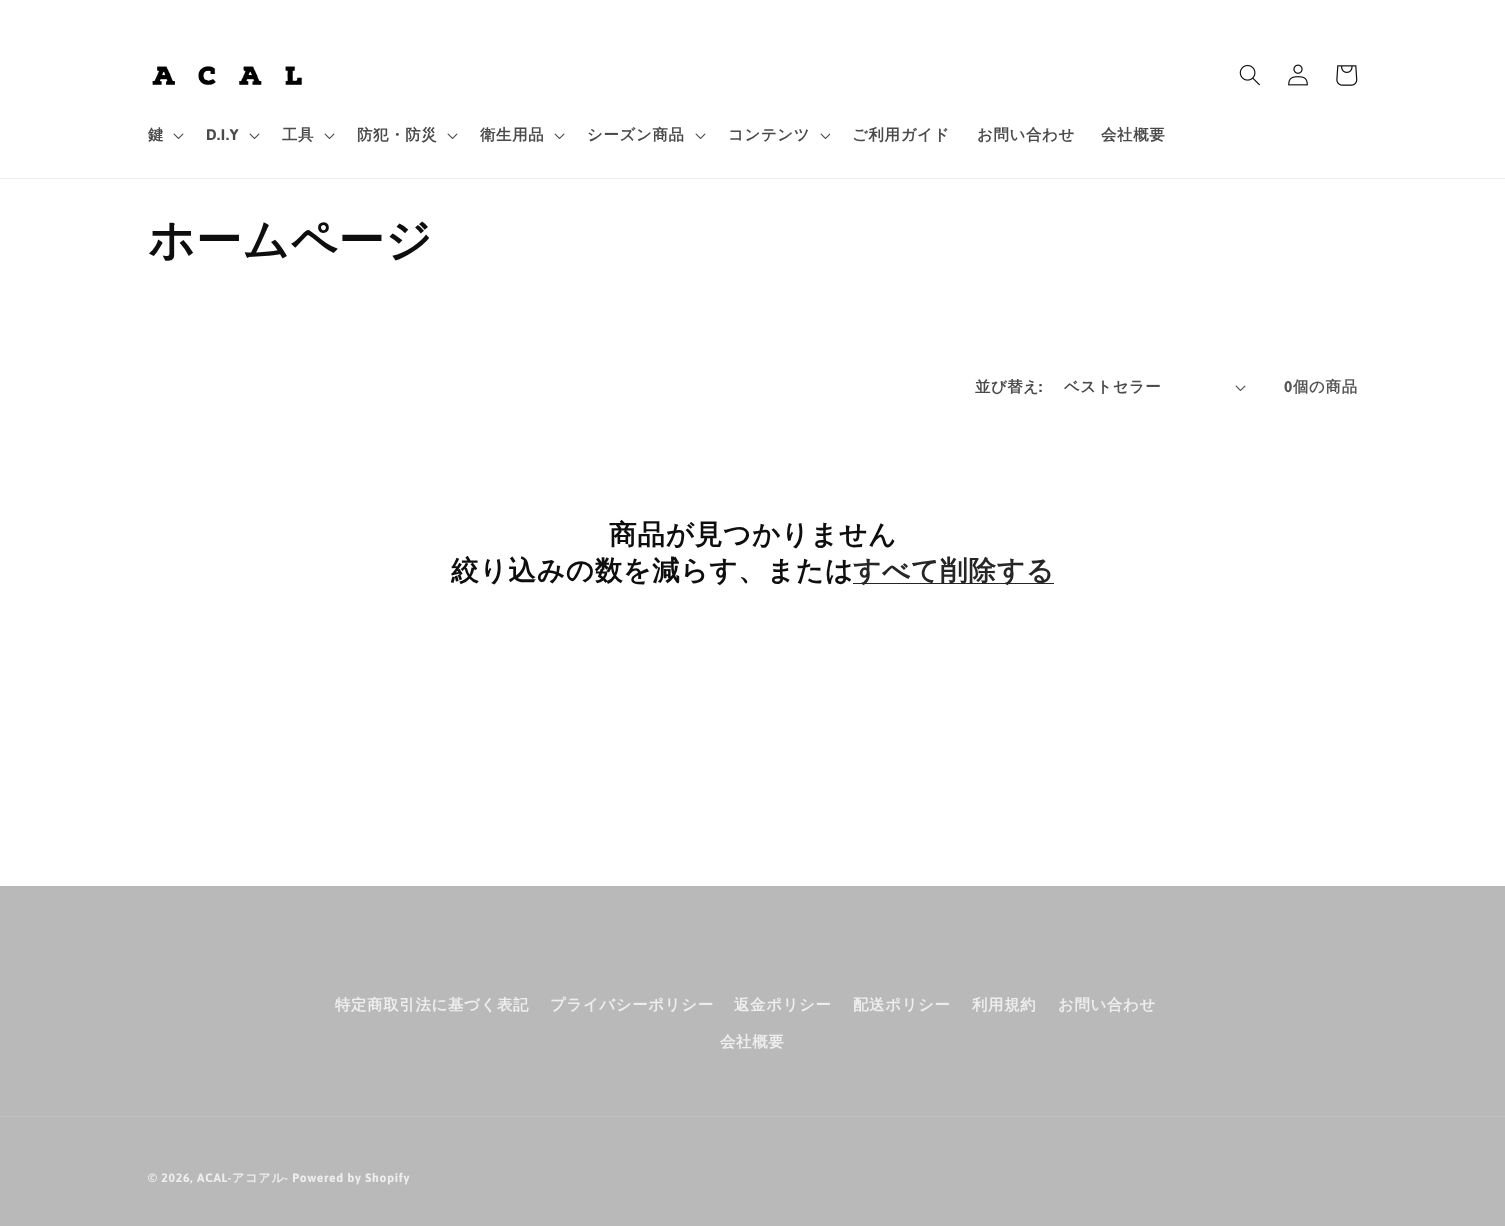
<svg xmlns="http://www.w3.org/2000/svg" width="1505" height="1226">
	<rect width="100%" height="100%" fill="#FFFFFF" />
	<rect x="0" y="178" width="1505" height="1" fill="#ECECEC" />
	<image x="152" y="66" width="151" height="19" href="assets/img1.png" />
	<image x="1239" y="64" width="21" height="22" href="assets/img2.png" />
	<image x="1288" y="64" width="20" height="22" href="assets/img3.png" />
	<image x="1336" y="65" width="22" height="21" href="assets/img4.png" />
	<text x="148" y="140" font-family="WenQuanYi Zen Hei" font-size="15.4" font-weight="700" letter-spacing="0.7" fill="#4A4A4A">鍵</text>
	<image x="173" y="133" width="11" height="6" href="assets/img5.png" />
	<text x="206" y="140" font-family="Asap" font-size="15.4" font-weight="700" letter-spacing="0.7" fill="#4A4A4A">D.I.Y</text>
	<image x="249" y="133" width="11" height="6" href="assets/img5.png" />
	<text x="282" y="140" font-family="WenQuanYi Zen Hei" font-size="15.4" font-weight="700" letter-spacing="0.7" fill="#4A4A4A">工具</text>
	<image x="324" y="133" width="11" height="6" href="assets/img5.png" />
	<text x="357" y="140" font-family="WenQuanYi Zen Hei" font-size="15.4" font-weight="700" letter-spacing="0.7" fill="#4A4A4A">防犯・防災</text>
	<image x="447" y="133" width="11" height="6" href="assets/img5.png" />
	<text x="480" y="140" font-family="WenQuanYi Zen Hei" font-size="15.4" font-weight="700" letter-spacing="0.7" fill="#4A4A4A">衛生用品</text>
	<image x="554" y="133" width="11" height="6" href="assets/img5.png" />
	<text x="587" y="140" font-family="WenQuanYi Zen Hei" font-size="15.4" font-weight="700" letter-spacing="0.7" fill="#4A4A4A">シーズン商品</text>
	<image x="695" y="133" width="11" height="6" href="assets/img5.png" />
	<text x="728" y="140" font-family="WenQuanYi Zen Hei" font-size="15.4" font-weight="700" letter-spacing="0.7" fill="#4A4A4A">コンテンツ</text>
	<image x="820" y="133" width="10" height="6" href="assets/img6.png" />
	<g font-family="WenQuanYi Zen Hei" font-size="15.4" font-weight="700" letter-spacing="0.7" fill="#4A4A4A">
		<text x="852" y="140">ご利用ガイド</text>
		<text x="977" y="140">お問い合わせ</text>
		<text x="1101" y="140">会社概要</text>
	</g>
	<text x="148" y="256" font-family="WenQuanYi Zen Hei" font-size="46" font-weight="700" letter-spacing="0.75" fill="#0E0E0E">ホームページ</text>
	<text x="975" y="392" font-family="WenQuanYi Zen Hei" font-size="15.4" font-weight="700" letter-spacing="0.5" fill="#4A4A4A">並び替え</text>
	<text x="1039" y="392" font-family="Asap" font-size="15.4" font-weight="700" letter-spacing="0.5" fill="#4A4A4A">:</text>
	<text x="1064" y="392" font-family="WenQuanYi Zen Hei" font-size="15.4" font-weight="700" letter-spacing="0.5" fill="#4A4A4A">ベストセラー</text>
	<image x="1235" y="385" width="11" height="6" href="assets/img5.png" />
	<text x="1284" y="392" font-family="Asap" font-size="15.4" font-weight="700" letter-spacing="0.7" fill="#565656">0</text>
	<text x="1293" y="392" font-family="WenQuanYi Zen Hei" font-size="15.4" font-weight="700" letter-spacing="0.7" fill="#565656">個の商品</text>
	<g font-family="WenQuanYi Zen Hei" font-size="27.6" font-weight="700" letter-spacing="0.75" fill="#0E0E0E">
		<text x="609" y="544">商品が見つかりません</text>
		<text x="451" y="580">絞り込みの数を減らす、または</text>
	</g>
	<rect x="853" y="583" width="201" height="1" fill="#262626" />
	<text x="853" y="580" font-family="WenQuanYi Zen Hei" font-size="27.6" font-weight="700" letter-spacing="0.75" fill="#262626">すべて削除する</text>
	<rect x="0" y="886" width="1505" height="340" fill="#B9B9B9" />
	<g font-family="WenQuanYi Zen Hei" font-size="15.4" font-weight="700" letter-spacing="0.7" fill="#EEEEEE">
		<text x="335" y="1010">特定商取引法に基づく表記</text>
		<text x="550" y="1010">プライバシーポリシー</text>
		<text x="734" y="1010">返金ポリシー</text>
		<text x="853" y="1010">配送ポリシー</text>
		<text x="972" y="1010">利用規約</text>
		<text x="1058" y="1010">お問い合わせ</text>
		<text x="720" y="1047">会社概要</text>
	</g>
	<rect x="0" y="1116" width="1505" height="1" fill="#BFBFBF" />
	<text x="148" y="1182" font-family="Asap" font-size="12.1" font-weight="700" letter-spacing="0.75" fill="#EEEEEE">© 2026, ACAL-</text>
	<text x="232" y="1182" font-family="WenQuanYi Zen Hei" font-size="12.1" font-weight="700" letter-spacing="0.75" fill="#EEEEEE">アコアル</text>
	<text x="284" y="1182" font-family="Asap" font-size="12.1" font-weight="700" letter-spacing="0.75" fill="#EEEEEE">- Powered by Shopify</text>
</svg>
